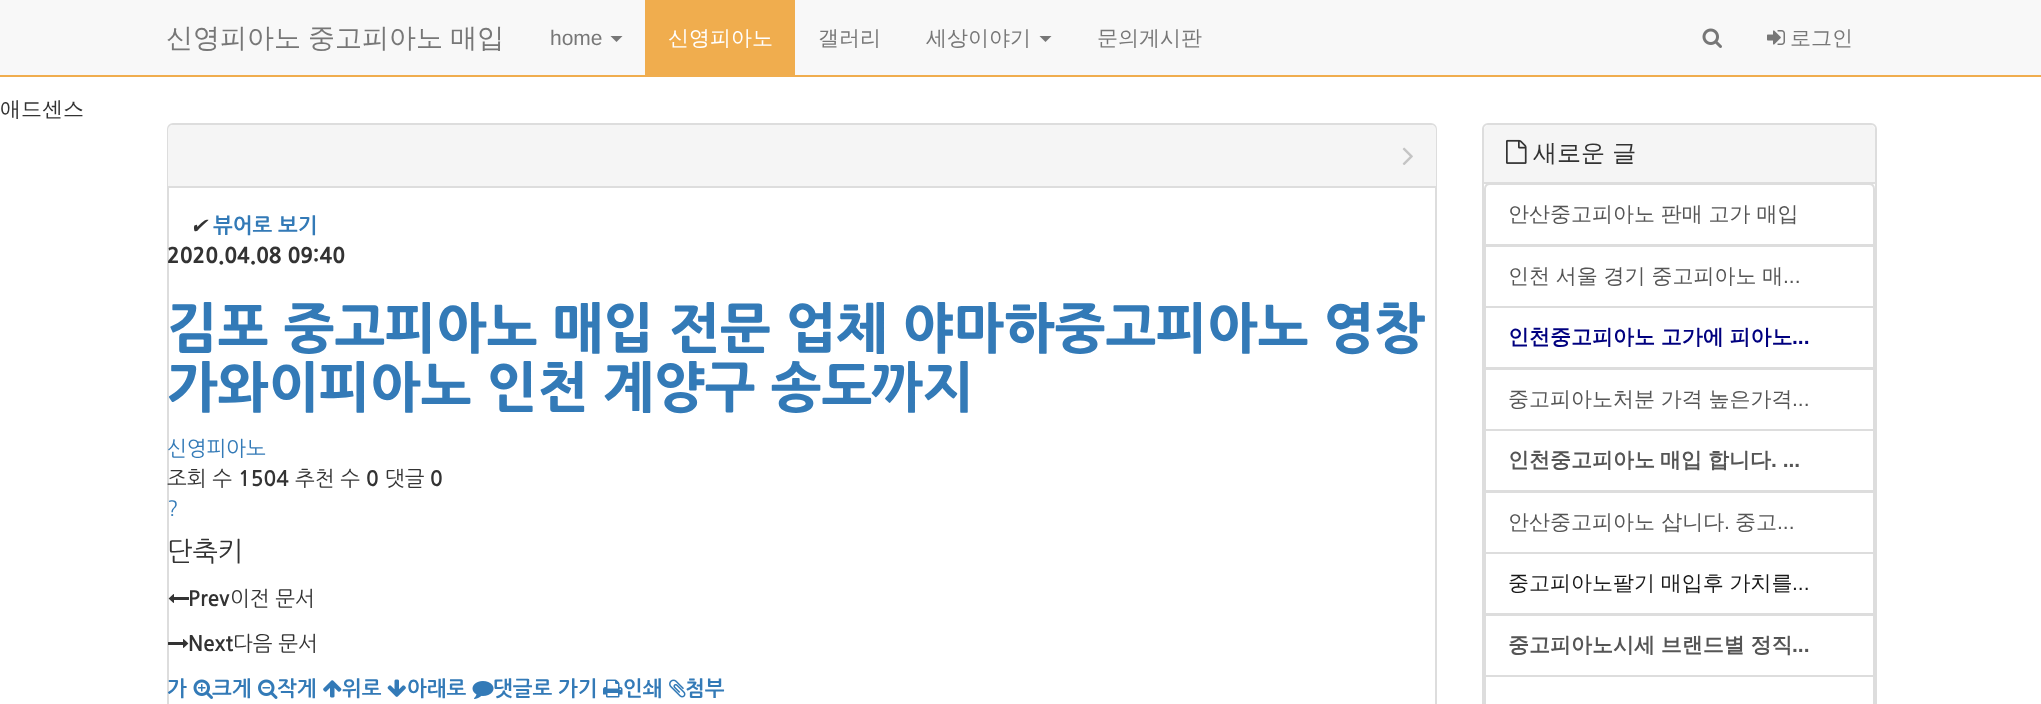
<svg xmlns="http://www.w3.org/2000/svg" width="2041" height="704">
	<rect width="100%" height="100%" fill="#FFFFFF" />
	<rect x="0" y="0" width="2041" height="75" fill="#F8F8F8" />
	<rect x="0" y="75" width="2041" height="2" fill="#F0AD4E" />
	<text x="166" y="47" word-spacing="-1" font-family="WenQuanYi Zen Hei" font-size="27" font-weight="500" fill="#777777">신영피아노 중고피아노 매입</text>
	<text x="550" y="45" font-family="Liberation Sans" font-size="21" fill="#777777">home</text>
	<path d="M610.5 36H622.5L616.5 42Z" fill="#777777" />
	<rect x="645" y="0" width="150" height="75" fill="#F0AD4E" />
	<text x="668" y="45" font-family="WenQuanYi Zen Hei" font-size="21" font-weight="500" fill="#FFFFFF">신영피아노</text>
	<g font-family="WenQuanYi Zen Hei" font-size="21" font-weight="500" fill="#777777">
		<text x="818" y="45">갤러리</text>
		<text x="926" y="45">세상이야기</text>
	</g>
	<path d="M1039.5 36H1051.5L1045.5 42Z" fill="#777777" />
	<text x="1097" y="45" font-family="WenQuanYi Zen Hei" font-size="21" font-weight="500" fill="#777777">문의게시판</text>
	<image x="1702" y="28" width="20" height="20" href="assets/img1.png" />
	<image x="1767" y="30" width="18" height="15" href="assets/img2.png" />
	<text x="1790" y="45" font-family="WenQuanYi Zen Hei" font-size="21" font-weight="500" fill="#777777">로그인</text>
	<text x="0" y="116" font-family="WenQuanYi Zen Hei" font-size="21" font-weight="500" fill="#333333">애드센스</text>
	<rect x="168" y="124" width="1268" height="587" rx="5" fill="none" stroke="#DDDDDD" stroke-width="2" />
	<path d="M173 125H1431C1434 125 1436 127 1436 130V188H168V130C168 127 170 125 173 125Z" fill="#F5F5F5" />
	<rect x="168" y="186" width="1268" height="2" fill="#DDDDDD" />
	<image x="1402" y="147" width="11" height="18" href="assets/img3.png" />
	<text x="190" y="233" font-family="DejaVu Sans" font-size="21" font-style="italic" fill="#333333">✔</text>
	<text x="213" y="233" font-family="NanumGothic" font-size="21" font-weight="700" fill="#337AB7">뷰어로 보기</text>
	<text x="167" y="263" font-family="NanumGothic" font-size="21" font-weight="800" fill="#333333">2020.04.08 09:40</text>
	<g font-family="NanumGothic" font-size="54" font-weight="800" fill="#337AB7">
		<text x="167" y="348">김포 중고피아노 매입 전문 업체 야마하중고피아노 영창</text>
		<text x="167" y="407">가와이피아노 인천 계양구 송도까지</text>
	</g>
	<text x="167" y="456" font-family="NanumGothic" font-size="21" fill="#337AB7">신영피아노</text>
	<text x="167" y="486" font-family="NanumGothic" font-size="21" fill="#333333">조회 수</text>
	<text x="238" y="486" font-family="NanumGothic" font-size="21" font-weight="700" fill="#333333">1504</text>
	<text x="295" y="486" font-family="NanumGothic" font-size="21" fill="#333333">추천 수</text>
	<text x="366" y="486" font-family="NanumGothic" font-size="21" font-weight="700" fill="#333333">0</text>
	<text x="385" y="486" font-family="NanumGothic" font-size="21" fill="#333333">댓글</text>
	<text x="430" y="486" font-family="NanumGothic" font-size="21" font-weight="700" fill="#333333">0</text>
	<text x="167" y="516" font-family="NanumGothic" font-size="21" fill="#337AB7">?</text>
	<text x="167" y="561" font-family="NanumGothic" font-size="27" fill="#333333">단축키</text>
	<image x="168" y="594" width="21" height="9" href="assets/img4.png" />
	<text x="188" y="606" font-family="NanumGothic" font-size="21" font-weight="700" fill="#333333">Prev</text>
	<text x="230" y="606" font-family="NanumGothic" font-size="21" fill="#333333">이전 문서</text>
	<image x="168" y="639" width="21" height="9" href="assets/img5.png" />
	<text x="188" y="651" font-family="NanumGothic" font-size="21" font-weight="700" fill="#333333">Next</text>
	<text x="233" y="651" font-family="NanumGothic" font-size="21" fill="#333333">다음 문서</text>
	<text x="167" y="696" font-family="NanumGothic" font-size="21" font-weight="700" fill="#337AB7">가</text>
	<image x="193" y="679" width="20" height="20" href="assets/img6.png" />
	<text x="212" y="696" font-family="NanumGothic" font-size="21" font-weight="700" fill="#337AB7">크게</text>
	<image x="258" y="679" width="20" height="20" href="assets/img7.png" />
	<text x="277" y="696" font-family="NanumGothic" font-size="21" font-weight="700" fill="#337AB7">작게</text>
	<image x="323" y="680" width="19" height="18" href="assets/img8.png" />
	<text x="342" y="696" font-family="NanumGothic" font-size="21" font-weight="700" fill="#337AB7">위로</text>
	<image x="387" y="679" width="19" height="18" href="assets/img9.png" />
	<text x="407" y="696" font-family="NanumGothic" font-size="21" font-weight="700" fill="#337AB7">아래로</text>
	<image x="472" y="681" width="22" height="18" href="assets/img10.png" />
	<text x="493" y="696" font-family="NanumGothic" font-size="21" font-weight="700" fill="#337AB7">댓글로 가기</text>
	<image x="603" y="679" width="20" height="19" href="assets/img11.png" />
	<text x="623" y="696" font-family="NanumGothic" font-size="21" font-weight="700" fill="#337AB7">인쇄</text>
	<image x="669" y="679" width="17" height="19" href="assets/img12.png" />
	<text x="685" y="696" font-family="NanumGothic" font-size="21" font-weight="700" fill="#337AB7">첨부</text>
	<rect x="1483" y="124" width="393" height="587" rx="5" fill="none" stroke="#DDDDDD" stroke-width="2" />
	<path d="M1489 125H1870C1873 125 1875 127 1875 130V183H1484V130C1484 127 1486 125 1489 125Z" fill="#F5F5F5" />
	<rect x="1484" y="182" width="391" height="2" fill="#DDDDDD" />
	<image x="1506" y="139" width="21" height="25" href="assets/img13.png" />
	<text x="1533" y="161" font-family="WenQuanYi Zen Hei" font-size="24" font-weight="500" fill="#333333">새로운 글</text>
	<path d="M1490 184H1869C1872 184 1874 186 1874 189V245H1485V189C1485 186 1487 184 1490 184Z" fill="#FFFFFF" stroke="#DDDDDD" stroke-width="2" />
	<text x="1508" y="221" word-spacing="-0.5" font-family="WenQuanYi Zen Hei" font-size="21" font-weight="500" fill="#555555">안산중고피아노 판매 고가 매입</text>
	<rect x="1485" y="246" width="389" height="61" fill="none" stroke="#DDDDDD" stroke-width="2" />
	<text x="1508" y="283" word-spacing="-0.5" font-family="WenQuanYi Zen Hei" font-size="21" font-weight="500" fill="#555555">인천 서울 경기 중고피아노 매</text>
	<text x="1783" y="283" font-family="Liberation Sans" font-size="21" fill="#555555">...</text>
	<rect x="1485" y="307" width="389" height="61" fill="none" stroke="#DDDDDD" stroke-width="2" />
	<text x="1508" y="344" word-spacing="-0.5" font-family="WenQuanYi Zen Hei" font-size="21" font-weight="700" fill="#00007F">인천중고피아노 고가에 피아노</text>
	<text x="1792" y="344" font-family="Liberation Sans" font-size="21" font-weight="700" fill="#00007F">...</text>
	<rect x="1485" y="369" width="389" height="61" fill="none" stroke="#DDDDDD" stroke-width="2" />
	<text x="1508" y="406" word-spacing="-0.5" font-family="WenQuanYi Zen Hei" font-size="21" font-weight="500" fill="#555555">중고피아노처분 가격 높은가격</text>
	<text x="1792" y="406" font-family="Liberation Sans" font-size="21" fill="#555555">...</text>
	<rect x="1485" y="430" width="389" height="61" fill="none" stroke="#DDDDDD" stroke-width="2" />
	<g font-family="WenQuanYi Zen Hei" font-size="21" font-weight="700" fill="#555555">
		<text x="1508" y="467">인천중고피아노</text>
		<text x="1660" y="467">매입</text>
		<text x="1708" y="467">합니다</text>
	</g>
	<text x="1771" y="467" font-family="Liberation Sans" font-size="21" font-weight="700" fill="#555555">. ...</text>
	<rect x="1485" y="492" width="389" height="61" fill="none" stroke="#DDDDDD" stroke-width="2" />
	<text x="1508" y="529" font-family="WenQuanYi Zen Hei" font-size="21" font-weight="500" fill="#555555">안산중고피아노 삽니다</text>
	<text x="1724" y="529" font-family="Liberation Sans" font-size="21" fill="#555555">.</text>
	<text x="1735" y="529" font-family="WenQuanYi Zen Hei" font-size="21" font-weight="500" fill="#555555">중고</text>
	<text x="1777" y="529" font-family="Liberation Sans" font-size="21" fill="#555555">...</text>
	<rect x="1485" y="553" width="389" height="61" fill="none" stroke="#DDDDDD" stroke-width="2" />
	<text x="1508" y="590" word-spacing="-0.5" font-family="WenQuanYi Zen Hei" font-size="21" font-weight="500" fill="#191919">중고피아노팔기 매입후 가치를</text>
	<text x="1792" y="590" font-family="Liberation Sans" font-size="21" fill="#191919">...</text>
	<rect x="1485" y="615" width="389" height="61" fill="none" stroke="#DDDDDD" stroke-width="2" />
	<text x="1508" y="652" word-spacing="-0.5" font-family="WenQuanYi Zen Hei" font-size="21" font-weight="700" fill="#555555">중고피아노시세 브랜드별 정직</text>
	<text x="1792" y="652" font-family="Liberation Sans" font-size="21" font-weight="700" fill="#555555">...</text>
	<rect x="1485" y="676" width="389" height="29" fill="none" stroke="#DDDDDD" stroke-width="2" />
</svg>
